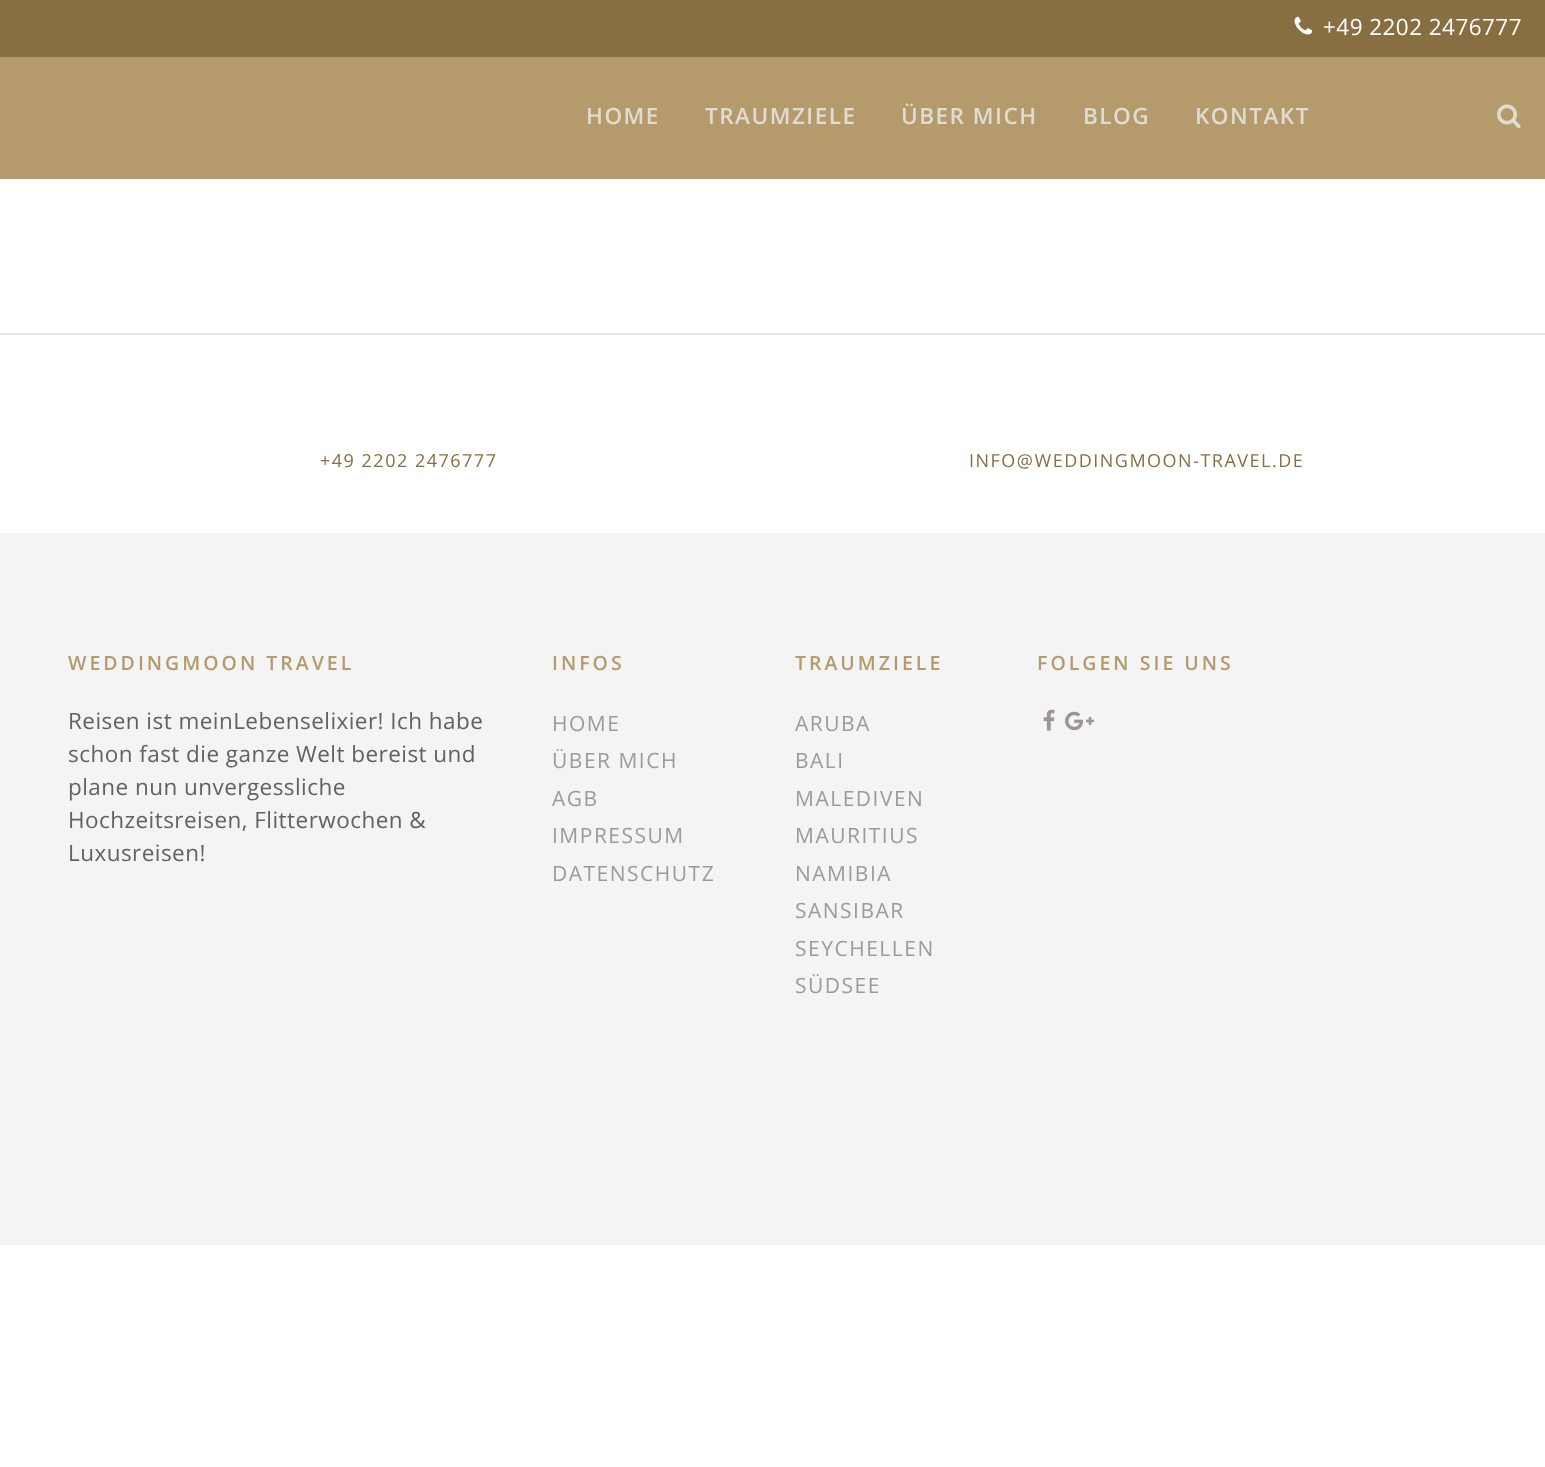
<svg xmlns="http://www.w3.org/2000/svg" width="1545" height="1467">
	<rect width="100%" height="100%" fill="#FFFFFF" />
	<rect x="0" y="0" width="1545" height="57" fill="#886F42" />
	<image x="1294" y="16" width="19" height="19" href="assets/img1.png" />
	<text x="1323" y="35" font-family="Open Sans" font-size="22.5" letter-spacing="0.45" fill="#FFFFFF">+49 2202 2476777</text>
	<rect x="0" y="57" width="1545" height="122" fill="#B59B6C" />
	<g font-family="Open Sans" font-size="22.5" font-weight="600" letter-spacing="1.5" fill="#E0DCD2">
		<text x="586" y="124">HOME</text>
		<text x="705" y="124">TRAUMZIELE</text>
		<text x="901" y="124">ÜBER MICH</text>
		<text x="1083" y="124">BLOG</text>
		<text x="1195" y="124">KONTAKT</text>
	</g>
	<image x="1497" y="104" width="24" height="25" href="assets/img2.png" />
	<rect x="0" y="533" width="1545" height="712" fill="#F4F4F4" />
	<rect x="0" y="333" width="1545" height="2" fill="#E5E5E5" />
	<g font-family="Open Sans" font-size="18" letter-spacing="1.5" fill="#886F42">
		<text x="320" y="467">+49 2202 2476777</text>
		<text x="969" y="467">INFO@WEDDINGMOON-TRAVEL.DE</text>
	</g>
	<text x="68" y="670" font-family="Open Sans" font-size="19.5" font-weight="600" letter-spacing="3" fill="#B59B6C">WEDDINGMOON TRAVEL</text>
	<g font-family="Open Sans" font-size="22.5" letter-spacing="0.45" fill="#626262">
		<text x="68" y="729">Reisen ist meinLebenselixier! Ich habe</text>
		<text x="68" y="762">schon fast die ganze Welt bereist und</text>
		<text x="68" y="795">plane nun unvergessliche</text>
		<text x="68" y="828">Hochzeitsreisen, Flitterwochen &amp;</text>
		<text x="68" y="861">Luxusreisen!</text>
	</g>
	<text x="552" y="670" font-family="Open Sans" font-size="19.5" font-weight="600" letter-spacing="3" fill="#B59B6C">INFOS</text>
	<g font-family="Open Sans" font-size="21" letter-spacing="1.5" fill="#9B9B9B">
		<text x="552" y="731">HOME</text>
		<text x="552" y="768">ÜBER MICH</text>
		<text x="552" y="806">AGB</text>
		<text x="552" y="843">IMPRESSUM</text>
		<text x="552" y="881">DATENSCHUTZ</text>
	</g>
	<text x="795" y="670" font-family="Open Sans" font-size="19.5" font-weight="600" letter-spacing="3" fill="#B59B6C">TRAUMZIELE</text>
	<g font-family="Open Sans" font-size="21" letter-spacing="1.5" fill="#9B9B9B">
		<text x="795" y="731">ARUBA</text>
		<text x="795" y="768">BALI</text>
		<text x="795" y="806">MALEDIVEN</text>
		<text x="795" y="843">MAURITIUS</text>
		<text x="795" y="881">NAMIBIA</text>
		<text x="795" y="918">SANSIBAR</text>
		<text x="795" y="956">SEYCHELLEN</text>
		<text x="795" y="993">SÜDSEE</text>
	</g>
	<text x="1037" y="670" font-family="Open Sans" font-size="19.5" font-weight="600" letter-spacing="3" fill="#B59B6C">FOLGEN SIE UNS</text>
	<image x="1043" y="709" width="12" height="22" href="assets/img3.png" />
	<image x="1065" y="711" width="29" height="20" href="assets/img4.png" />
</svg>
